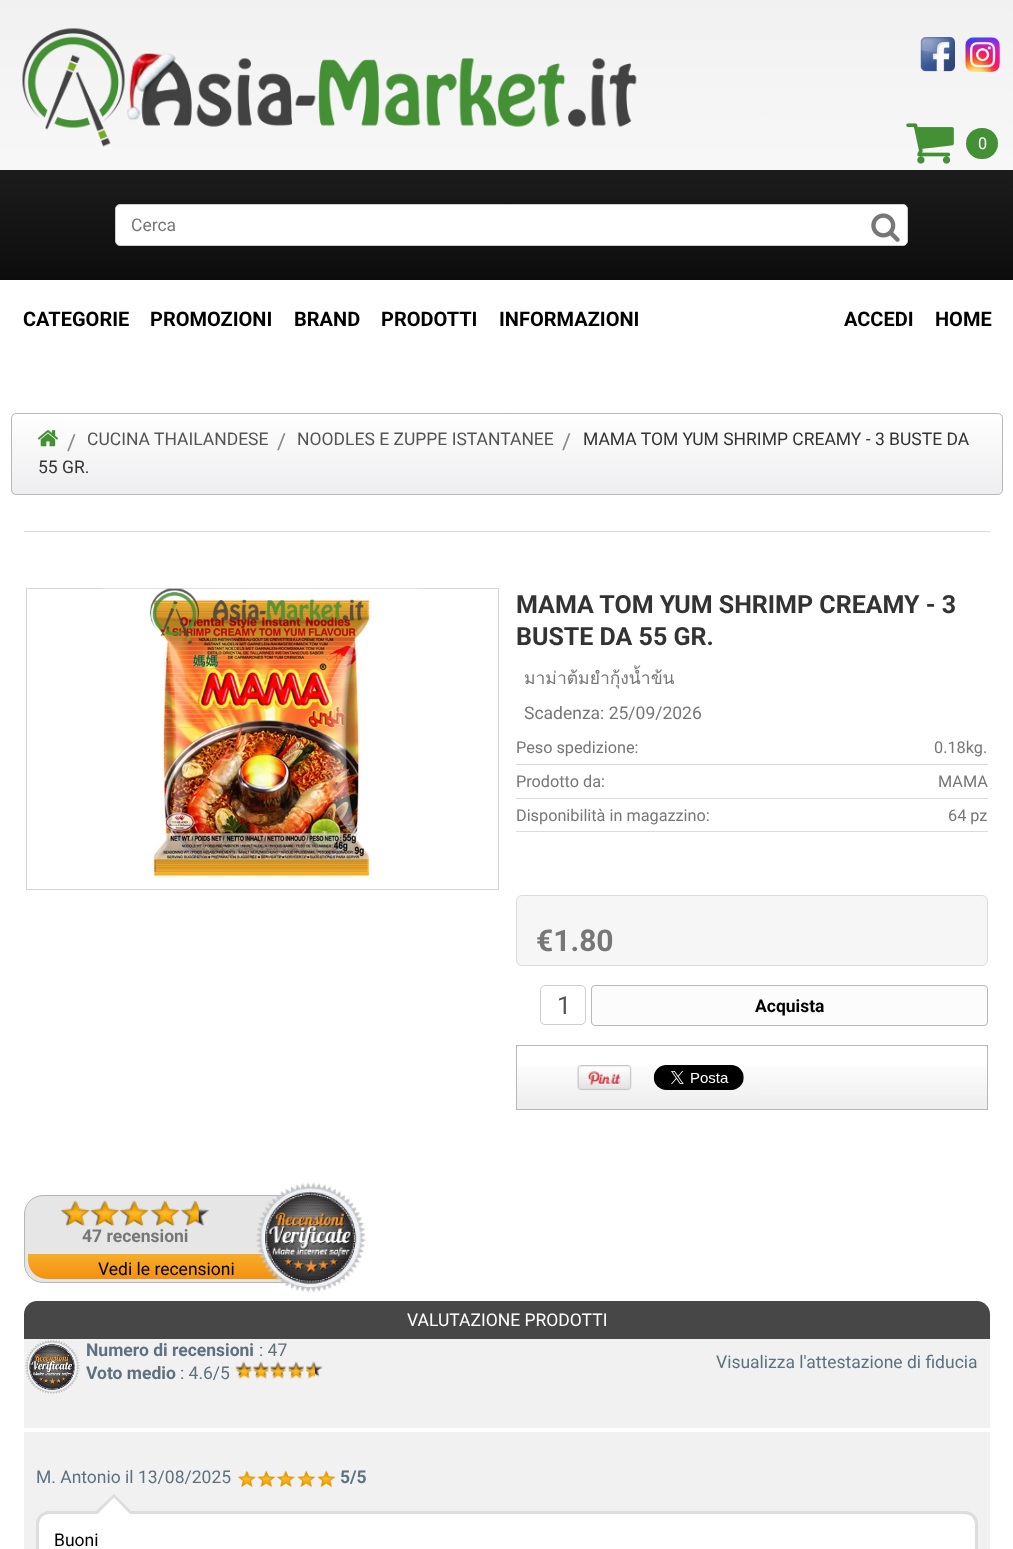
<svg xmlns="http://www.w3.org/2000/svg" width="1013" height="1549">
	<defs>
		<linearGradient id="g1" gradientUnits="userSpaceOnUse" x1="507" y1="0" x2="507" y2="373"><stop offset="0" stop-color="#F1F1F1" /><stop offset="1" stop-color="#FFFFFF" /></linearGradient>
		<linearGradient id="g2" gradientUnits="userSpaceOnUse" x1="507" y1="170" x2="507" y2="360"><stop offset="0" stop-color="#1C1C1C" /><stop offset="0.5" stop-color="#0F0F0F" /><stop offset="1" stop-color="#000000" /></linearGradient>
		<clipPath id="clip1"><rect x="11" y="413" width="992" height="82" rx="5" /></clipPath>
		<linearGradient id="g3" gradientUnits="userSpaceOnUse" x1="507" y1="414" x2="507" y2="494"><stop offset="0" stop-color="#FFFFFF" /><stop offset="1" stop-color="#EEEDEF" /></linearGradient>
		<linearGradient id="g4" gradientUnits="userSpaceOnUse" x1="752" y1="1046" x2="752" y2="1109"><stop offset="0.2" stop-color="#FFFFFF" /><stop offset="1" stop-color="#EDEDED" /></linearGradient>
		<linearGradient id="g5" gradientUnits="userSpaceOnUse" x1="173" y1="1254" x2="173" y2="1279"><stop offset="0.01" stop-color="#F7AD26" /><stop offset="1" stop-color="#F49112" /></linearGradient>
	</defs>
	<rect width="100%" height="100%" fill="#FFFFFF" />
	<rect x="0" y="0" width="1013" height="306" fill="url(#g1)" />
	<image x="22" y="28" width="615" height="119" href="assets/img1.png" />
	<image x="920" y="37" width="35" height="35" href="assets/img2.png" />
	<image x="965" y="37" width="35" height="35" href="assets/img3.png" />
	<rect x="966" y="128" width="32" height="31" rx="15.5" fill="#449035" />
	<image x="906" y="123" width="48" height="41" href="assets/img4.png" />
	<text x="978" y="149" font-family="Roboto" font-size="16.25" fill="#FFFFFF">0</text>
	<rect x="0" y="170" width="1013" height="110" fill="url(#g2)" />
	<rect x="115.5" y="204.5" width="792" height="41" rx="4.5" fill="#FFFFFF" stroke="#CCCCCC" />
	<text x="131" y="231" font-family="Roboto" font-size="17.5" fill="#777777">Cerca</text>
	<rect x="903" y="205" width="3" height="40" fill="#FFFFFF" />
	<image x="871" y="213" width="29" height="29" href="assets/img5.png" />
	<rect x="0" y="280" width="1013" height="26" fill="#FFFFFF" />
	<g font-family="Roboto" font-size="20" font-weight="700" fill="#000000">
		<text x="23" y="326">CATEGORIE</text>
		<text x="150" y="326">PROMOZIONI</text>
		<text x="294" y="326">BRAND</text>
		<text x="381" y="326">PRODOTTI</text>
		<text x="499" y="326">INFORMAZIONI</text>
		<text x="844" y="326">ACCEDI</text>
		<text x="935" y="326">HOME</text>
	</g>
	<g clip-path="url(#clip1)">
		<rect x="11" y="414" width="992" height="80" fill="url(#g3)" />
	</g>
	<rect x="11.5" y="413.5" width="991" height="81" rx="4.5" fill="none" stroke="#B8B8B8" />
	<image x="37" y="430" width="21" height="17" href="assets/img6.png" />
	<text x="67" y="450" font-family="Roboto" font-size="22" fill="#888888">/</text>
	<text x="87" y="445" font-family="Roboto" font-size="17.5" fill="#555555">CUCINA THAILANDESE</text>
	<text x="277" y="449" font-family="Roboto" font-size="22" fill="#888888">/</text>
	<text x="297" y="445" font-family="Roboto" font-size="17.5" fill="#555555">NOODLES E ZUPPE ISTANTANEE</text>
	<text x="562" y="449" font-family="Roboto" font-size="22" fill="#888888">/</text>
	<g font-family="Roboto" font-size="17.5" fill="#333333">
		<text x="583" y="445">MAMA TOM YUM SHRIMP CREAMY - 3 BUSTE DA</text>
		<text x="38" y="473">55 GR.</text>
	</g>
	<rect x="24" y="531" width="966" height="1" fill="#DBDBDB" />
	<rect x="26.5" y="588.5" width="472" height="301" fill="none" stroke="#D6D4D4" />
	<image x="102" y="588" width="321" height="289" href="assets/img7.png" />
	<g font-family="Roboto" font-size="25" font-weight="700" fill="#333333">
		<text x="516" y="613">MAMA TOM YUM SHRIMP CREAMY - 3</text>
		<text x="516" y="645">BUSTE DA 55 GR.</text>
	</g>
	<text x="524" y="684" font-family="Loma" font-size="17.5" fill="#777777">มาม่าต้มยำกุ้งน้ำข้น</text>
	<text x="524" y="719" font-family="Roboto" font-size="17.5" fill="#777777">Scadenza: 25/09/2026</text>
	<rect x="516" y="764" width="472" height="1" fill="#DBDBDB" />
	<g font-family="Roboto" font-size="16.25" fill="#777777">
		<text x="516" y="753">Peso spedizione:</text>
		<text x="934" y="753">0.18kg.</text>
	</g>
	<rect x="516" y="798" width="472" height="1" fill="#DBDBDB" />
	<g font-family="Roboto" font-size="16.25" fill="#777777">
		<text x="516" y="787">Prodotto da:</text>
		<text x="938" y="787">MAMA</text>
	</g>
	<rect x="516" y="831" width="472" height="1" fill="#DBDBDB" />
	<g font-family="Roboto" font-size="16.25" fill="#777777">
		<text x="516" y="821">Disponibilità in magazzino:</text>
		<text x="948" y="821">64 pz</text>
	</g>
	<rect x="516.5" y="895.5" width="471" height="70" rx="5.5" fill="#F6F6F6" stroke="#DBDBDB" />
	<text x="536" y="951" font-family="Roboto" font-size="30" font-weight="700" fill="#777777">€1.80</text>
	<rect x="540.5" y="985.5" width="45" height="39" rx="4.5" fill="none" stroke="#CCCCCC" />
	<text x="557" y="1014" font-family="Roboto" font-size="25" fill="#555555">1</text>
	<rect x="591.5" y="985.5" width="396" height="40" rx="3.5" fill="#FCFCFC" stroke="#B8B8B8" />
	<text x="755" y="1012" font-family="Roboto" font-size="17.5" font-weight="700" fill="#000000">Acquista</text>
	<rect x="517" y="1066" width="470" height="43" fill="url(#g4)" />
	<rect x="516.5" y="1045.5" width="471" height="64" fill="none" stroke="#B8B8B8" />
	<image x="577" y="1065" width="55" height="26" href="assets/img8.png" />
	<image x="653" y="1065" width="91" height="25" href="assets/img9.png" />
	<rect x="24.5" y="1195.5" width="324" height="87" rx="18.5" fill="#E6E6E6" stroke="#B6B6B6" />
	<image x="61" y="1200" width="148" height="27" href="assets/img10.png" />
	<image x="62" y="1200" width="137" height="27" href="assets/img11.png" />
	<text x="82" y="1242" font-family="Roboto" font-size="17.5" font-weight="700" fill="#777777">47 recensioni</text>
	<path d="M28 1254H318V1260C318 1270.5 309.5 1279 299 1279H47C36.5 1279 28 1270.5 28 1260Z" fill="url(#g5)" />
	<image x="256" y="1182" width="110" height="111" href="assets/img12.png" />
	<text x="98" y="1275" font-family="Roboto" font-size="17.5" fill="#000000">Vedi le recensioni</text>
	<path d="M37 1301H977C984 1301 990 1307 990 1314V1339H24V1314C24 1307 30 1301 37 1301Z" fill="#474747" />
	<text x="407" y="1326" font-family="Roboto" font-size="17.5" fill="#FFFFFF">VALUTAZIONE PRODOTTI</text>
	<rect x="24" y="1339" width="966" height="89" fill="#F1F1F1" />
	<image x="25" y="1340" width="55" height="54" href="assets/img13.png" />
	<text x="86" y="1356" font-family="Roboto" font-size="17.5" font-weight="700" fill="#5D717E">Numero di recensioni</text>
	<text x="259" y="1356" font-family="Roboto" font-size="17.5" fill="#5D717E">: 47</text>
	<text x="86" y="1379" font-family="Roboto" font-size="17.5" font-weight="700" fill="#5D717E">Voto medio</text>
	<text x="180" y="1379" font-family="Roboto" font-size="17.5" fill="#5D717E">: 4.6/5</text>
	<image x="235" y="1361" width="88" height="16" href="assets/img14.png" />
	<image x="235" y="1363" width="80" height="16" href="assets/img15.png" />
	<text x="716" y="1368" font-family="Roboto" font-size="17.5" fill="#5D717E">Visualizza l'attestazione di fiducia</text>
	<rect x="24" y="1432" width="966" height="117" fill="#F1F1F1" />
	<text x="36" y="1483" font-family="Roboto" font-size="17.5" fill="#5D717E">M. Antonio il 13/08/2025</text>
	<image x="238" y="1470" width="98" height="18" href="assets/img16.png" />
	<text x="340" y="1483" font-family="Roboto" font-size="17.5" font-weight="700" fill="#5D717E">5/5</text>
	<rect x="37.5" y="1512.5" width="939" height="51" rx="11.5" fill="#FFFFFF" stroke="#DDDDDD" stroke-width="3" />
	<path d="M131 1511H96L114 1494Z" fill="#DDDDDD" />
	<path d="M130 1514H97.5L114 1497.5Z" fill="#FFFFFF" />
	<text x="54" y="1546" font-family="Roboto" font-size="17.5" fill="#000000">Buoni</text>
</svg>
